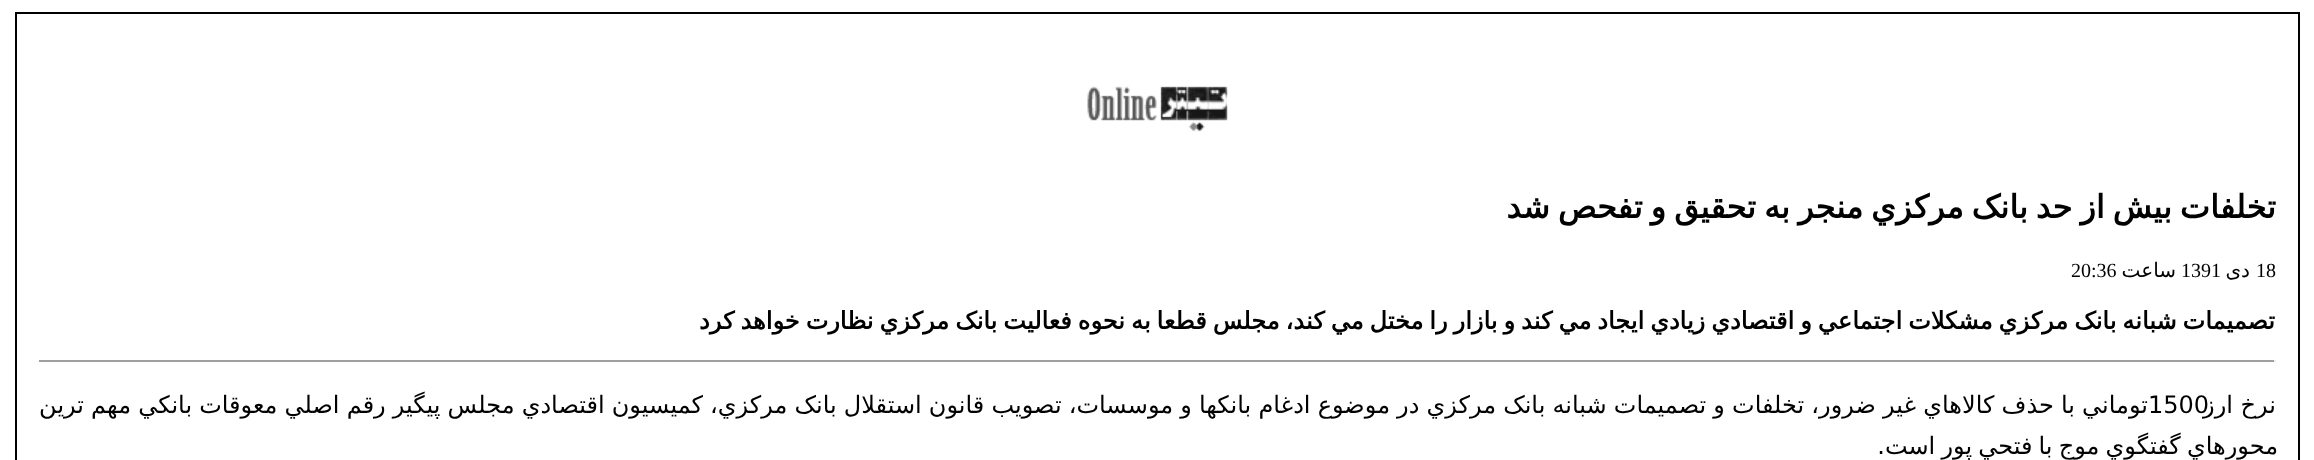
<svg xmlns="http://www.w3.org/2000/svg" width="2314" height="460">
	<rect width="100%" height="100%" fill="#FFFFFF" />
	<rect x="16" y="13" width="2283" height="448" fill="none" stroke="#000000" stroke-width="2" />
	<image x="1087" y="86" width="141" height="46" href="assets/img1.png" />
	<text x="2276" y="218" word-spacing="-2.25" font-family="DejaVu Sans" font-size="32" font-weight="700" direction="rtl" fill="#000000">تخلفات بيش از حد بانک مرکزي منجر به تحقيق و تفحص شد</text>
	<text x="2256" y="277" font-family="Liberation Serif" font-size="20" fill="#000000">18</text>
	<text x="2250" y="277" font-family="DejaVu Sans" font-size="20" direction="rtl" fill="#000000">دی</text>
	<text x="2181" y="277" font-family="Liberation Serif" font-size="20" fill="#000000">1391</text>
	<text x="2176" y="277" font-family="DejaVu Sans" font-size="20" direction="rtl" fill="#000000">ساعت</text>
	<text x="2071" y="277" font-family="Liberation Serif" font-size="20" fill="#000000">20:36</text>
	<text x="2275" y="329" word-spacing="-1.6" font-family="DejaVu Sans" font-size="24" font-weight="700" direction="rtl" fill="#000000">تصميمات شبانه بانک مرکزي مشکلات اجتماعي و اقتصادي زيادي ايجاد مي کند و بازار را مختل مي کند، مجلس قطعا به نحوه فعاليت بانک مرکزي نظارت خواهد کرد</text>
	<rect x="39" y="360" width="2237" height="2" fill="#9F9F9F" />
	<rect x="2274" y="360" width="2" height="2" fill="#EEEEEE" />
	<text x="2148" y="413" font-family="DejaVu Sans" font-size="24" fill="#000000">1500</text>
	<g font-family="DejaVu Sans" font-size="24" direction="rtl" fill="#000000">
		<text x="2276" y="413">نرخ ارز</text>
		<text x="2148" y="413" word-spacing="-0.5">توماني با حذف کالاهاي غير ضرور، تخلفات و تصميمات شبانه بانک مرکزي در موضوع ادغام بانکها و موسسات، تصويب قانون استقلال بانک مرکزي، کميسيون اقتصادي مجلس پيگير رقم اصلي معوقات بانکي مهم ترين</text>
		<text x="2278" y="454" word-spacing="-1.5">محورهاي گفتگوي موج با فتحي پور است.</text>
	</g>
</svg>
